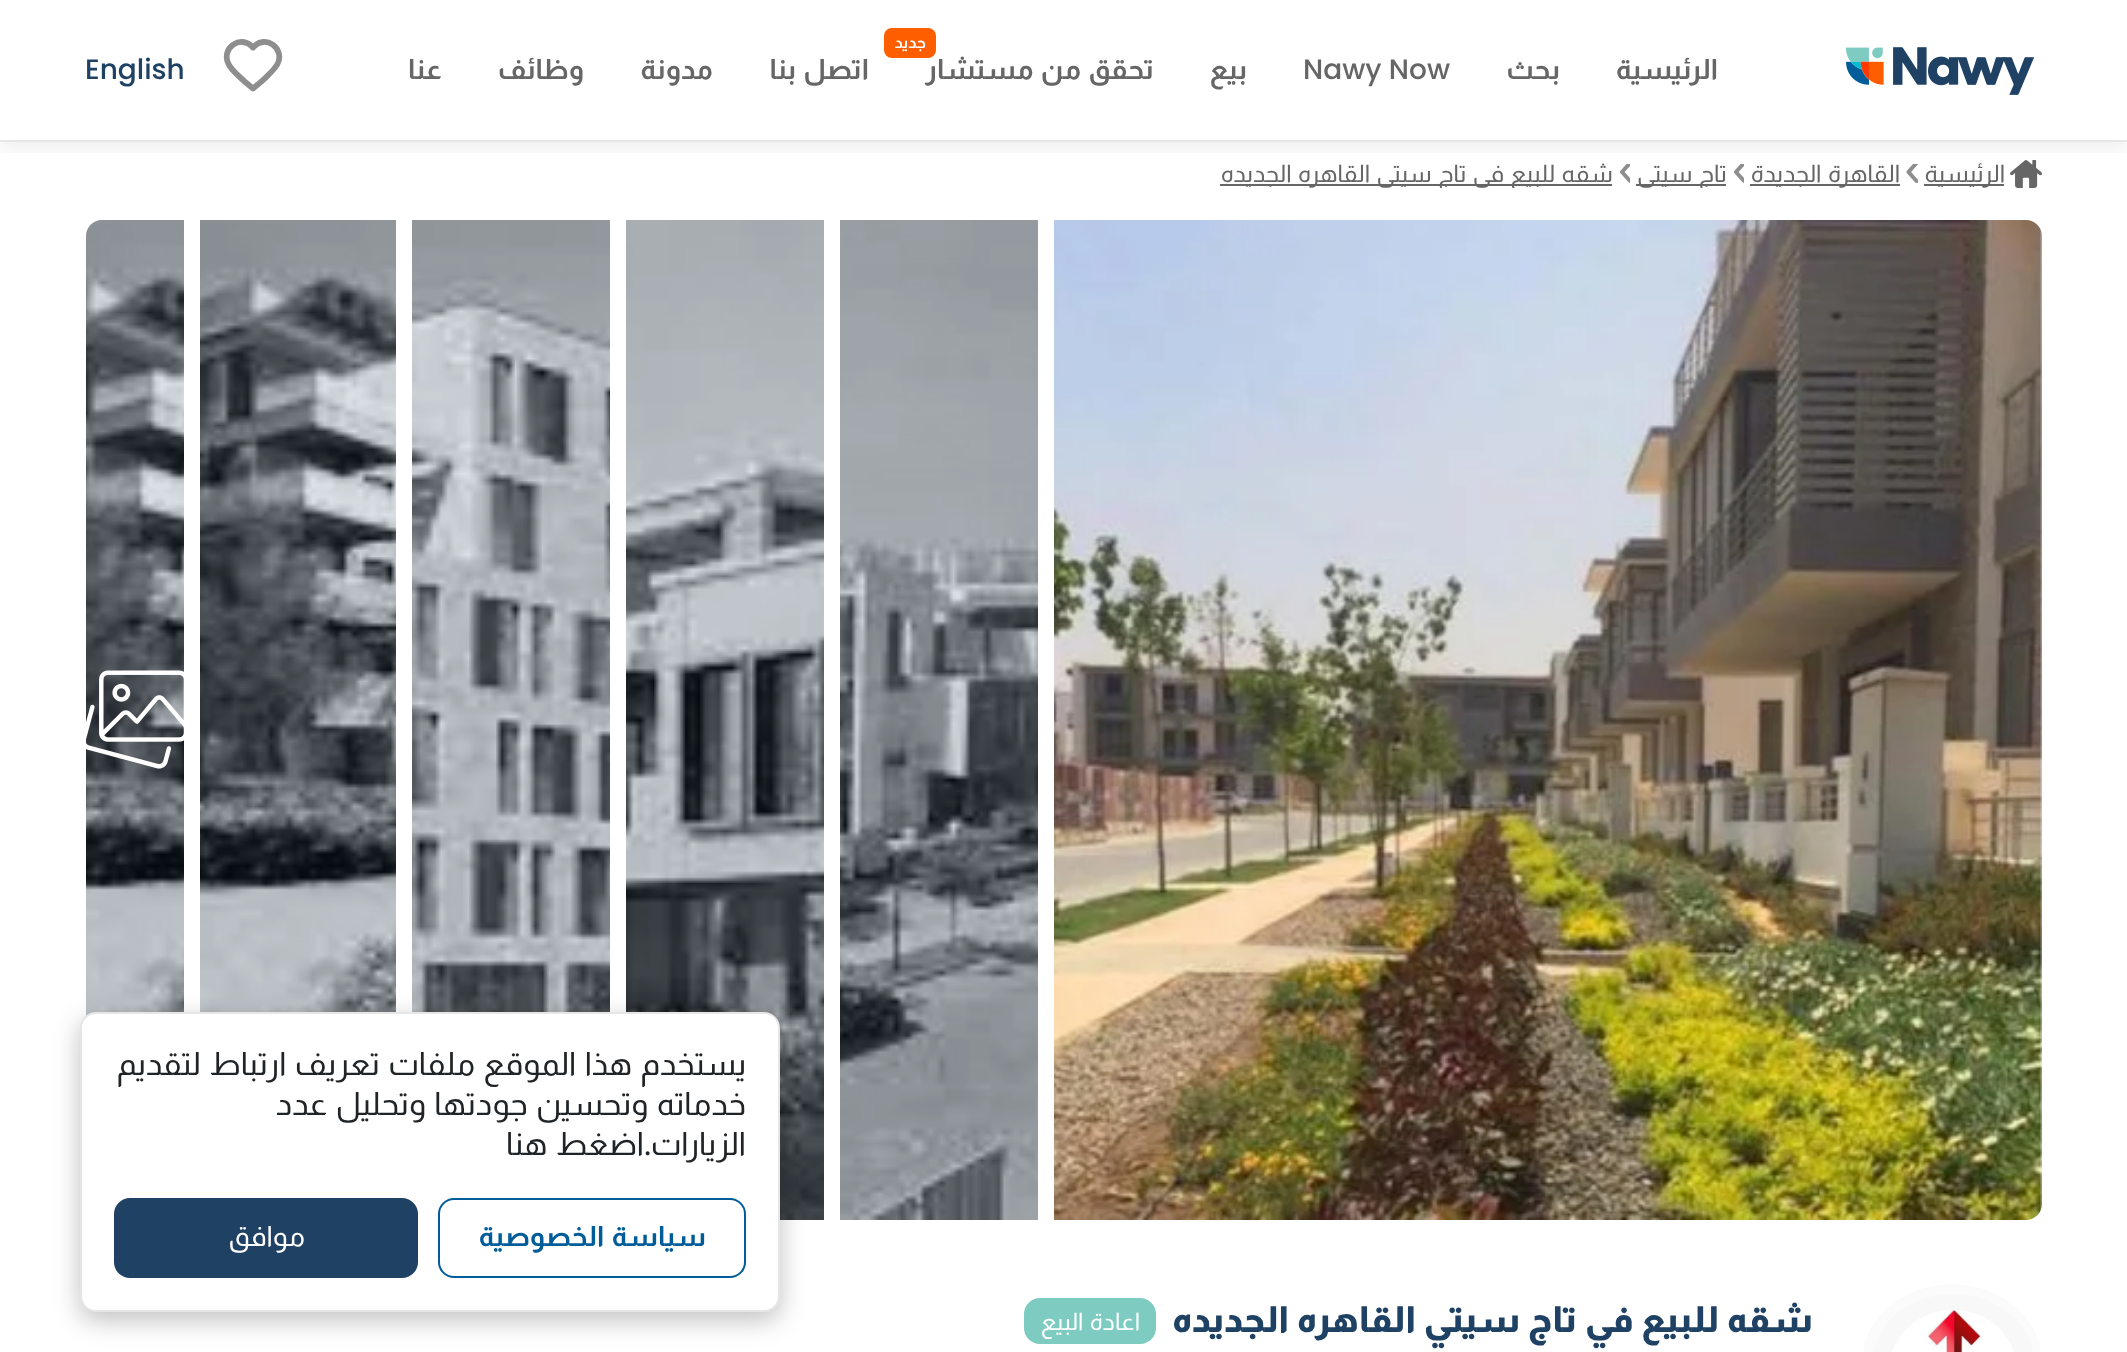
<svg xmlns="http://www.w3.org/2000/svg" width="2127" height="1352">
	<defs>
		<clipPath id="clip1"><rect x="1906" y="164" width="12" height="20" /></clipPath>
		<clipPath id="clip2"><rect x="1732" y="164" width="12" height="20" /></clipPath>
		<clipPath id="clip3"><rect x="1618" y="164" width="12" height="20" /></clipPath>
		<clipPath id="clip4"><rect x="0" y="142" width="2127" height="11" /></clipPath>
		<clipPath id="clip5"><rect x="86" y="158" width="1956" height="30" /></clipPath>
	</defs>
	<rect width="100%" height="100%" fill="#FFFFFF" />
	<image x="2010" y="160" width="32" height="28" href="assets/img2.png" />
	<g clip-path="url(#clip1)">
		<path d="M1916.5 181L1908.5 172L1916.5 163" fill="none" stroke="#8E8E8E" stroke-width="4" stroke-linecap="round" stroke-linejoin="round" />
	</g>
	<g clip-path="url(#clip2)">
		<path d="M1744 181L1736 172L1744 163" fill="none" stroke="#8E8E8E" stroke-width="4" stroke-linecap="round" stroke-linejoin="round" />
	</g>
	<g clip-path="url(#clip3)">
		<path d="M1630 181L1622 172L1630 163" fill="none" stroke="#8E8E8E" stroke-width="4" stroke-linecap="round" stroke-linejoin="round" />
	</g>
	<g clip-path="url(#clip4)">
		<rect x="0" y="8" width="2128" height="142" fill="#000000" fill-opacity="0.06" filter="blur(8px)" />
	</g>
	<rect x="0" y="140" width="2127" height="2" fill="#E6E6E6" />
	<image x="1846" y="47" width="188" height="48" href="assets/img1.png" />
	<g font-family="Almarai" font-size="28" font-weight="700" direction="rtl" fill="#666666">
		<text x="1718" y="79">الرئيسية</text>
		<text x="1560" y="79">بحث</text>
	</g>
	<text x="1303" y="79" font-family="Poppins" font-size="28" font-weight="500" fill="#666666">Nawy Now</text>
	<g font-family="Almarai" font-size="28" font-weight="700" direction="rtl" fill="#666666">
		<text x="1247" y="79">بيع</text>
		<text x="1154" y="79" word-spacing="2">تحقق من مستشار</text>
	</g>
	<rect x="884" y="28" width="52" height="30" rx="8" fill="#FF5E00" />
	<text x="926" y="48" font-family="Almarai" font-size="16" font-weight="700" direction="rtl" fill="#FFFFFF">جديد</text>
	<g font-family="Almarai" font-size="28" font-weight="700" direction="rtl" fill="#666666">
		<text x="869" y="79" word-spacing="2">اتصل بنا</text>
		<text x="713" y="79">مدونة</text>
		<text x="584" y="79">وظائف</text>
		<text x="442" y="79">عنا</text>
	</g>
	<path d="M253 47.5C241 33.5 220.5 48.5 228.5 64C231.5 70.5 239 76 244 81L253 88.5L262 81C267 76 274 70.5 277.5 64C285.5 48.5 265 33.5 253 47.5Z" fill="none" stroke="#8E8E8E" stroke-width="5.8" stroke-linecap="round" stroke-linejoin="round" />
	<text x="85" y="79" font-family="Poppins" font-size="28" font-weight="500" fill="#1E4164">English</text>
	<rect x="1924" y="184" width="80" height="2" fill="#666666" />
	<text x="2005" y="182" font-family="Almarai" font-size="24" direction="rtl" fill="#666666">الرئيسية</text>
	<rect x="1750" y="184" width="150" height="2" fill="#666666" />
	<text x="1900" y="182" word-spacing="2" font-family="Almarai" font-size="24" direction="rtl" fill="#666666">القاهرة الجديدة</text>
	<rect x="1636" y="184" width="90" height="2" fill="#666666" />
	<g clip-path="url(#clip5)">
		<text x="1727" y="182" word-spacing="2" font-family="Almarai" font-size="24" direction="rtl" fill="#666666">تاج سيتي</text>
	</g>
	<rect x="1220" y="184" width="392" height="2" fill="#666666" />
	<g clip-path="url(#clip5)">
		<text x="1613" y="182" word-spacing="2" font-family="Almarai" font-size="24" direction="rtl" fill="#666666">شقه للبيع في تاج سيتي القاهره الجديده</text>
	</g>
	<image x="1054" y="220" width="988" height="1000" href="assets/img3.png" />
	<image x="840" y="220" width="198" height="1000" href="assets/img4.png" />
	<image x="626" y="220" width="198" height="1000" href="assets/img5.png" />
	<image x="412" y="220" width="198" height="792" href="assets/img6.png" />
	<image x="200" y="220" width="196" height="792" href="assets/img7.png" />
	<image x="86" y="220" width="98" height="796" href="assets/img8.png" />
	<path d="M102 220H184V1220H102C93 1220 86 1213 86 1204V236C86 227 93 220 102 220Z" fill="#1E4164" fill-opacity="0.15" />
	<image x="86" y="670" width="98" height="99" href="assets/img9.png" />
	<rect x="1862" y="1284" width="180" height="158" rx="90" fill="#FBFBFB" />
	<rect x="1872" y="1294" width="162" height="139" rx="81" fill="#F8F8F8" />
	<image x="1892" y="1310" width="122" height="42" href="assets/img10.png" />
	<text x="1813" y="1332" word-spacing="1" font-family="Almarai" font-size="36" font-weight="800" direction="rtl" fill="#1E4164">شقه للبيع في تاج سيتي القاهره الجديده</text>
	<rect x="1024" y="1298" width="132" height="46" rx="16" fill="#7DCBC1" />
	<text x="1140" y="1330" word-spacing="2" font-family="Almarai" font-size="24" direction="rtl" fill="#FFFFFF">اعادة البيع</text>
	<rect x="80" y="1020" width="700" height="300" rx="16" fill="#000000" fill-opacity="0.25" filter="blur(13px)" />
	<rect x="81" y="1013" width="698" height="298" rx="15" fill="#FFFFFF" stroke="#E6E6E6" stroke-width="2" />
	<g font-family="Almarai" font-size="32" direction="rtl" fill="#212427">
		<text x="746" y="1075" word-spacing="2.5">يستخدم هذا الموقع</text>
		<text x="475" y="1075" word-spacing="2.5">ملفات تعريف ارتباط لتقديم</text>
		<text x="746" y="1115" word-spacing="2.5">خدماته وتحسين جودتها وتحليل عدد</text>
		<text x="746" y="1155">الزيارات</text>
	</g>
	<text x="651" y="1155" font-family="Poppins" font-size="32" direction="rtl" fill="#212427">.</text>
	<text x="644" y="1155" word-spacing="2.5" font-family="Almarai" font-size="32" direction="rtl" fill="#212427">اضغط هنا</text>
	<rect x="439" y="1199" width="306" height="78" rx="15" fill="none" stroke="#015C9A" stroke-width="2" />
	<text x="706" y="1246" word-spacing="2" font-family="Almarai" font-size="28" font-weight="700" direction="rtl" fill="#015C9A">سياسة الخصوصية</text>
	<rect x="114" y="1198" width="304" height="80" rx="16" fill="#1E4164" />
	<text x="305" y="1246" font-family="Almarai" font-size="28" direction="rtl" fill="#FFFFFF">موافق</text>
</svg>
